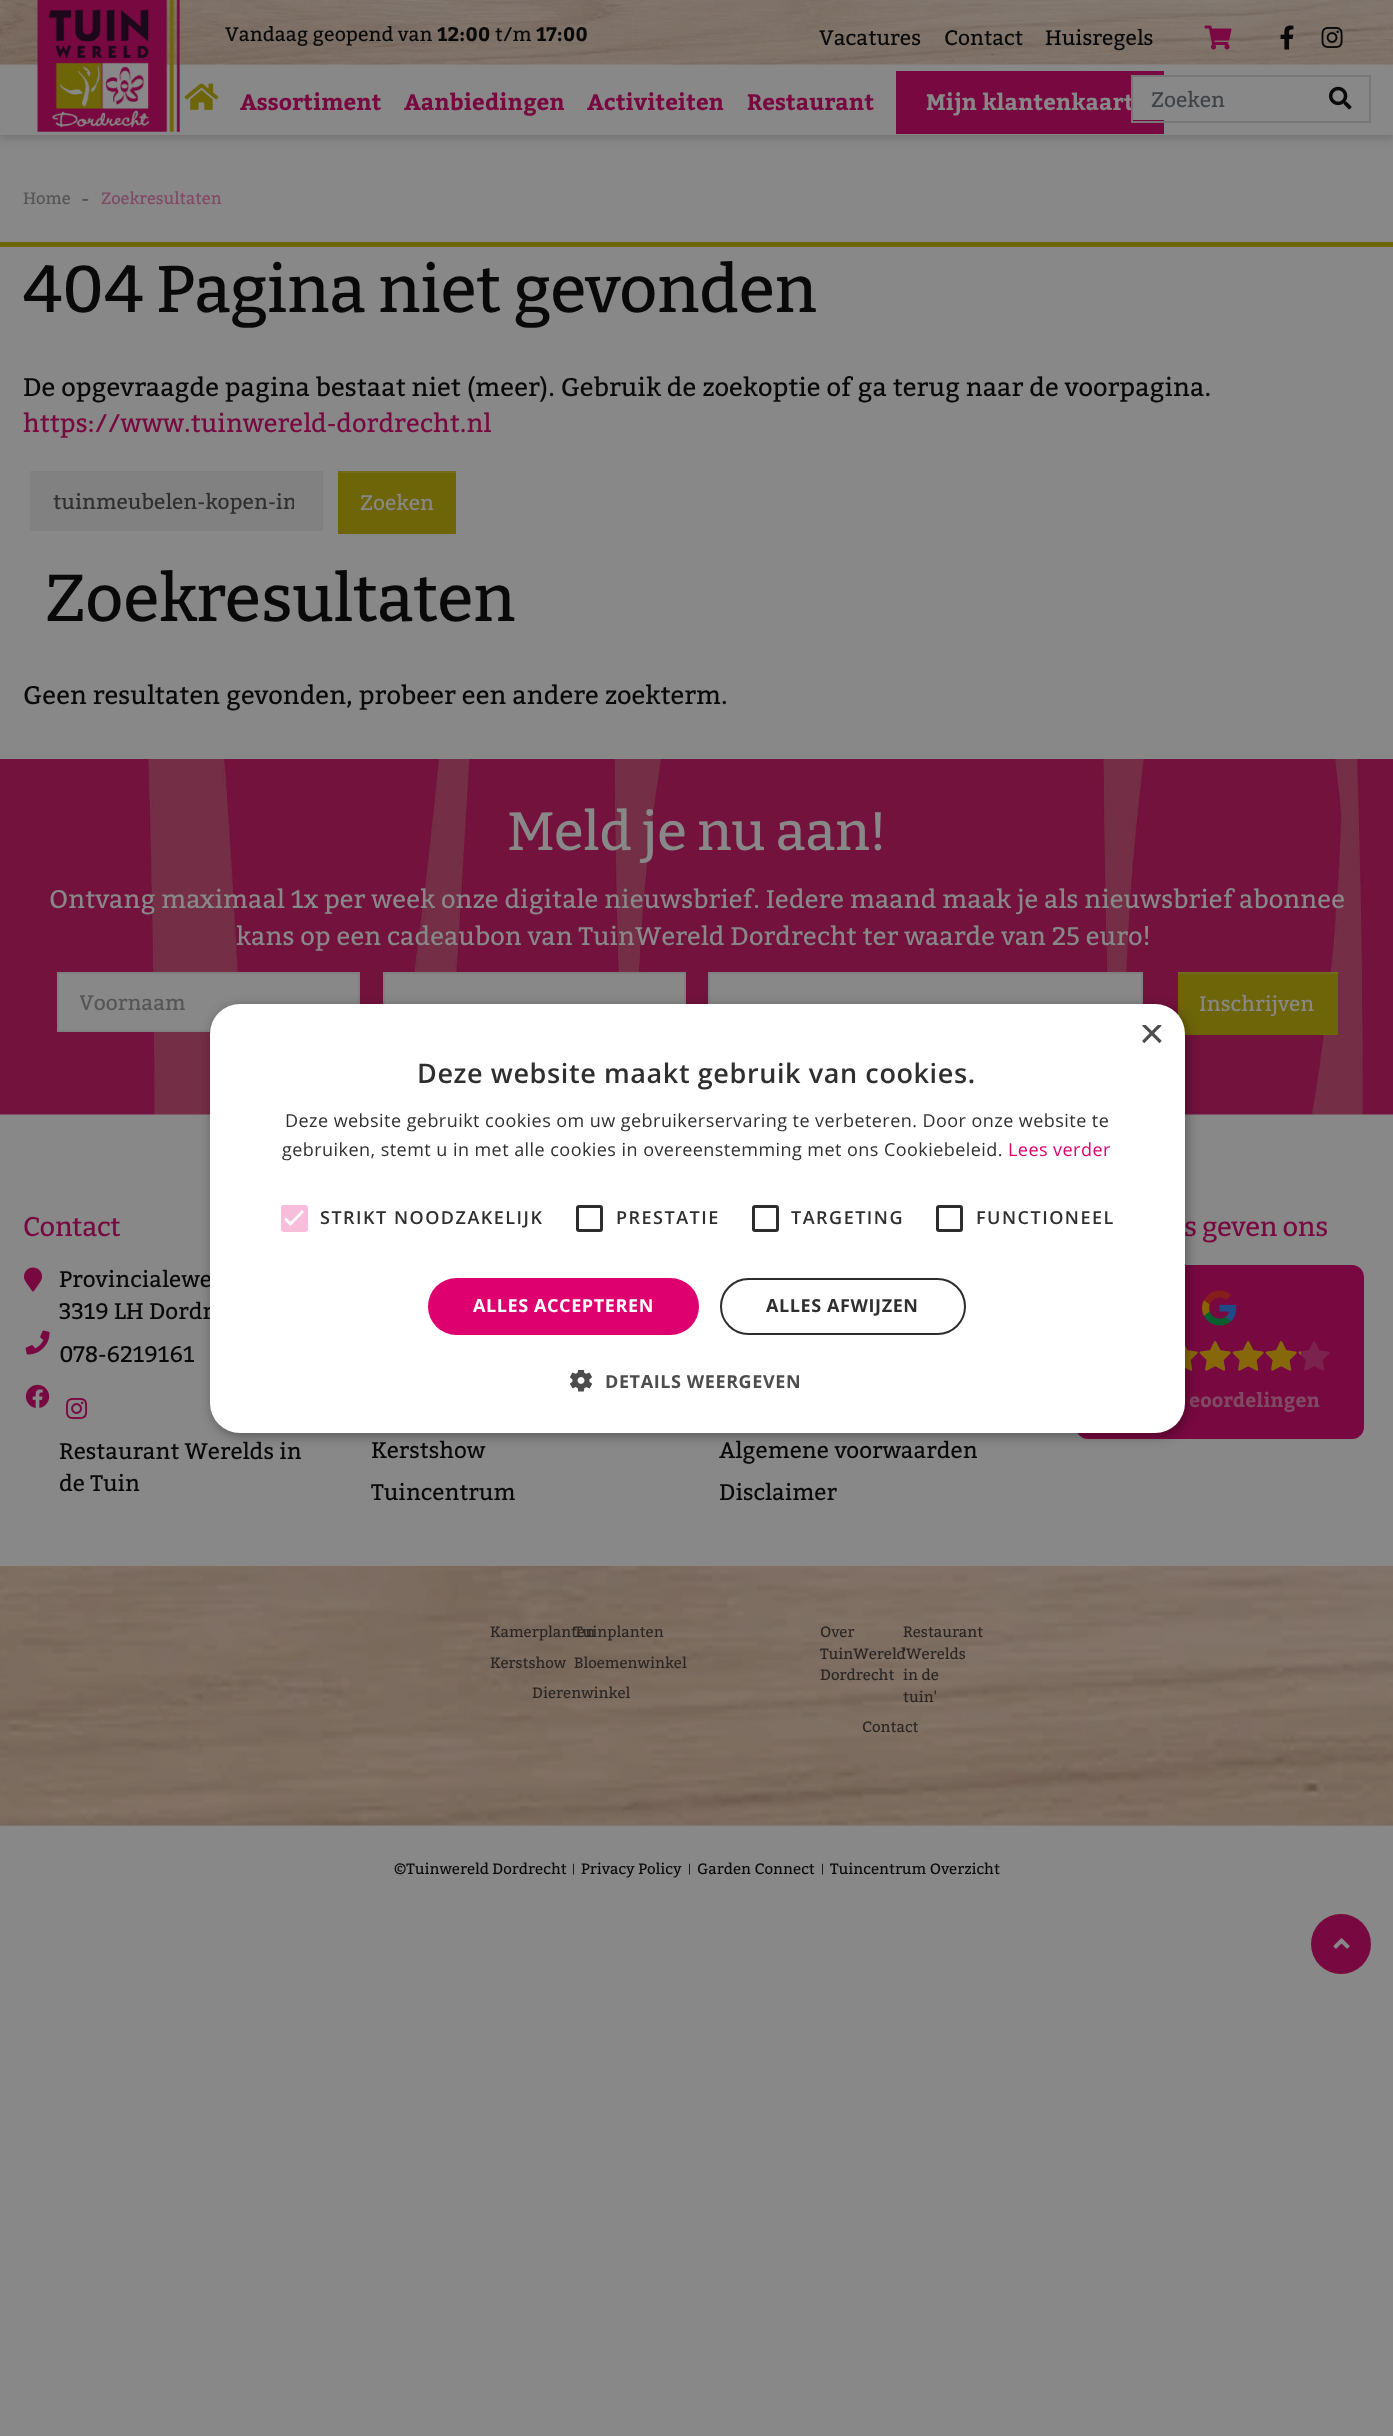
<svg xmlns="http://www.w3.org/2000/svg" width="1393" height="2436">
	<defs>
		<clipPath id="clip1"><rect x="53" y="479" width="241" height="45" /></clipPath>
		<clipPath id="clip2"><rect x="80" y="989" width="258" height="27" /></clipPath>
		<clipPath id="clip3"><rect x="1140" y="1025" width="23" height="22" /></clipPath>
	</defs>
	<rect width="100%" height="100%" fill="#888888" />
	<rect x="0" y="3" width="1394" height="135" fill="#4D4D4D" fill-opacity="0.4" filter="blur(4px)" />
	<rect x="0" y="0" width="1393" height="135" fill="#888888" />
	<image x="0" y="0" width="1393" height="65" href="assets/img2.png" />
	<image x="37" y="0" width="143" height="132" href="assets/img1.png" />
	<text x="225" y="41" font-family="Bitter" font-size="19.5" fill="#090909">Vandaag geopend van</text>
	<text x="437" y="41" font-family="Bitter" font-size="19.5" font-weight="700" fill="#090909">12:00</text>
	<text x="495" y="41" font-family="Bitter" font-size="19.5" fill="#090909">t/m</text>
	<text x="536" y="41" font-family="Bitter" font-size="19.5" font-weight="700" fill="#090909">17:00</text>
	<g font-family="Bitter" font-size="21" fill="#090909">
		<text x="819" y="45">Vacatures</text>
		<text x="944" y="45">Contact</text>
		<text x="1045" y="45">Huisregels</text>
	</g>
	<image x="1204" y="25" width="28" height="25" href="assets/img3.png" />
	<image x="1280" y="25" width="14" height="25" href="assets/img4.png" />
	<image x="1321" y="27" width="22" height="21" href="assets/img5.png" />
	<image x="184" y="83" width="35" height="27" href="assets/img6.png" />
	<g font-family="Bitter" font-size="22.5" font-weight="700" fill="#780940">
		<text x="240" y="110">Assortiment</text>
		<text x="404" y="110">Aanbiedingen</text>
		<text x="587" y="110">Activiteiten</text>
		<text x="747" y="110">Restaurant</text>
	</g>
	<rect x="896" y="71" width="268" height="63" fill="#780940" />
	<text x="926" y="110" font-family="Bitter" font-size="22.5" font-weight="700" fill="#888888">Mijn klantenkaart</text>
	<rect x="1133" y="77" width="31" height="43" fill="#888888" />
	<rect x="1132" y="76" width="238" height="46" fill="none" stroke="#777777" stroke-width="2" />
	<text x="1151" y="107" font-family="Bitter" font-size="21" fill="#3F4347">Zoeken</text>
	<image x="1329" y="86" width="23" height="24" href="assets/img7.png" />
	<text x="23" y="312" font-family="Bitter" font-size="66" font-weight="500" fill="#090909">404 Pagina niet gevonden</text>
	<text x="23" y="396" font-family="Bitter" font-size="25.5" fill="#090909">De opgevraagde pagina bestaat niet (meer). Gebruik de zoekoptie of ga terug naar de voorpagina.</text>
	<text x="23" y="432" font-family="Bitter" font-size="25.5" fill="#780940">https://www.tuinwereld-dordrecht.nl</text>
	<rect x="30" y="471" width="293" height="60" fill="#818181" />
	<g clip-path="url(#clip1)">
		<text x="53" y="509" font-family="Bitter" font-size="21" fill="#2F2F2F">tuinmeubelen-kopen-in</text>
	</g>
	<rect x="338" y="473" width="118" height="61" fill="#6E6509" />
	<rect x="338" y="471" width="118" height="2" fill="#726B1C" />
	<text x="360" y="510" font-family="Bitter" font-size="21" fill="#888888">Zoeken</text>
	<text x="45" y="621" font-family="Bitter" font-size="66" font-weight="500" fill="#090909">Zoekresultaten</text>
	<text x="23" y="704" font-family="Bitter" font-size="25.5" fill="#090909">Geen resultaten gevonden, probeer een andere zoekterm.</text>
	<rect x="0" y="242" width="1393" height="5" fill="#6E6509" />
	<image x="0" y="759" width="1393" height="356" href="assets/img8.png" />
	<text x="507" y="850" font-family="Bitter" font-size="54" font-weight="500" fill="#888888">Meld je nu aan!</text>
	<g font-family="Bitter" font-size="25.5" fill="#888888">
		<text x="49" y="908">Ontvang maximaal 1x per week onze digitale nieuwsbrief. Iedere maand maak je als nieuwsbrief abonnee</text>
		<text x="236" y="945">kans op een cadeaubon van TuinWereld Dordrecht ter waarde van 25 euro!</text>
	</g>
	<rect x="58" y="973" width="301" height="58" fill="#888888" stroke="#808080" stroke-width="2" />
	<g clip-path="url(#clip2)">
		<text x="79" y="1010" font-family="Bitter" font-size="21" fill="#555555">Voornaam</text>
	</g>
	<rect x="385" y="974" width="299" height="30" fill="#888888" />
	<rect x="384" y="973" width="301" height="58" fill="none" stroke="#808080" stroke-width="2" />
	<rect x="710" y="974" width="431" height="30" fill="#888888" />
	<rect x="709" y="973" width="433" height="58" fill="none" stroke="#808080" stroke-width="2" />
	<rect x="1178" y="974" width="160" height="61" fill="#6E6509" />
	<rect x="1178" y="972" width="160" height="2" fill="#726B1C" />
	<text x="1199" y="1011" font-family="Bitter" font-size="21" fill="#888888">Inschrijven</text>
	<text x="23" y="204" font-family="Bitter" font-size="16.5" fill="#555555">Home</text>
	<text x="81" y="206" font-family="Bitter" font-size="22.5" fill="#555555">-</text>
	<text x="101" y="204" font-family="Bitter" font-size="16.5" fill="#804964">Zoekresultaten</text>
	<text x="23" y="1236" font-family="Bitter" font-size="27" font-weight="500" fill="#780940">Contact</text>
	<image x="24" y="1267" width="18" height="25" href="assets/img9.png" />
	<g font-family="Bitter" font-size="22.5" fill="#090909">
		<text x="59" y="1287">Provincialewe</text>
		<text x="59" y="1319">3319 LH Dordr</text>
	</g>
	<image x="25" y="1330" width="25" height="25" href="assets/img10.png" />
	<text x="59" y="1362" font-family="Bitter" font-size="22.5" fill="#090909">078-6219161</text>
	<image x="25" y="1384" width="25" height="24" href="assets/img11.png" />
	<image x="66" y="1398" width="22" height="21" href="assets/img12.png" />
	<g font-family="Bitter" font-size="22.5" fill="#090909">
		<text x="59" y="1459">Restaurant Werelds in</text>
		<text x="59" y="1491">de Tuin</text>
	</g>
	<text x="1184" y="1236" font-family="Bitter" font-size="27" font-weight="500" fill="#780940">s geven ons</text>
	<rect x="1076" y="1265" width="288" height="174" rx="12" fill="#780940" />
	<image x="1202" y="1290" width="35" height="36" href="assets/img13.png" />
	<image x="1185" y="1346" width="13" height="25" href="assets/img15.png" />
	<image x="1185" y="1345" width="13" height="26" href="assets/img14.png" />
	<image x="1199" y="1341" width="32" height="30" href="assets/img16.png" />
	<image x="1199" y="1341" width="32" height="30" href="assets/img17.png" />
	<image x="1232" y="1341" width="32" height="30" href="assets/img16.png" />
	<image x="1232" y="1341" width="32" height="30" href="assets/img17.png" />
	<image x="1265" y="1341" width="32" height="30" href="assets/img16.png" />
	<image x="1265" y="1341" width="32" height="30" href="assets/img17.png" />
	<image x="1298" y="1341" width="32" height="30" href="assets/img16.png" />
	<image x="1298" y="1351" width="3" height="5" href="assets/img18.png" />
	<text x="1189" y="1407" font-family="Bitter" font-size="19.5" font-weight="700" fill="#804964">eoordelingen</text>
	<g font-family="Bitter" font-size="22.5" fill="#090909">
		<text x="371" y="1458">Kerstshow</text>
		<text x="371" y="1500">Tuincentrum</text>
		<text x="719" y="1458">Algemene voorwaarden</text>
		<text x="719" y="1500">Disclaimer</text>
	</g>
	<rect x="0" y="1825" width="1393" height="1" fill="#818181" />
	<image x="0" y="1566" width="1393" height="260" href="assets/img19.png" />
	<g font-family="Bitter" font-size="15" fill="#2B2623">
		<text x="490" y="1637">Kamerplanten</text>
		<text x="574" y="1637">Tuinplanten</text>
		<text x="490" y="1668">Kerstshow</text>
		<text x="574" y="1668">Bloemenwinkel</text>
		<text x="532" y="1698">Dierenwinkel</text>
		<text x="820" y="1637">Over</text>
		<text x="820" y="1659">TuinWereld</text>
		<text x="820" y="1680">Dordrecht</text>
		<text x="903" y="1637">Restaurant</text>
		<text x="903" y="1659">'Werelds</text>
		<text x="903" y="1680">in de</text>
		<text x="903" y="1702">tuin'</text>
		<text x="862" y="1732">Contact</text>
	</g>
	<text x="394" y="1874" font-family="Bitter" font-size="15" fill="#090909">©Tuinwereld Dordrecht</text>
	<text x="572" y="1872" font-family="Bitter" font-size="11" fill="#090909">|</text>
	<text x="581" y="1874" font-family="Bitter" font-size="15" fill="#090909">Privacy Policy</text>
	<text x="688" y="1872" font-family="Bitter" font-size="11" fill="#090909">|</text>
	<text x="697" y="1874" font-family="Bitter" font-size="15" fill="#090909">Garden Connect</text>
	<text x="821" y="1872" font-family="Bitter" font-size="11" fill="#090909">|</text>
	<text x="830" y="1874" font-family="Bitter" font-size="15" fill="#090909">Tuincentrum Overzicht</text>
	<circle cx="1341" cy="1944" r="30" fill="#780940" />
	<image x="1333" y="1938" width="17" height="11" href="assets/img20.png" />
	<rect x="212" y="1007" width="975" height="429" rx="30" fill="#000000" fill-opacity="0.35" filter="blur(6px)" />
	<rect x="210" y="1004" width="975" height="429" rx="30" fill="#FFFFFF" />
	<g clip-path="url(#clip3)">
		<text x="1139" y="1048" font-family="Liberation Sans" font-size="44" fill="#4D4D4D">×</text>
	</g>
	<text x="417" y="1083" font-family="Open Sans" font-size="27" font-weight="600" letter-spacing="0.6" fill="#2F2F2F">Deze website maakt gebruik van cookies.</text>
	<g font-family="Open Sans" font-size="18" letter-spacing="0.45" fill="#2F2F2F">
		<text x="285" y="1127">Deze website gebruikt cookies om uw gebruikerservaring te verbeteren. Door onze website te</text>
		<text x="282" y="1156">gebruiken, stemt u in met alle cookies in overeenstemming met ons Cookiebeleid.</text>
	</g>
	<text x="1008" y="1156" font-family="Open Sans" font-size="18" letter-spacing="0.45" fill="#DF006F">Lees verder</text>
	<rect x="281" y="1205" width="27" height="27" rx="3" fill="#F7BDDA" />
	<path d="M285 1218.5L290.5 1224L303 1211" fill="none" stroke="#FFFFFF" stroke-width="2.7" />
	<text x="320" y="1224" font-family="Open Sans" font-size="18" font-weight="600" letter-spacing="1.5" fill="#2F2F2F">STRIKT NOODZAKELIJK</text>
	<rect x="577.5" y="1206.5" width="24" height="24" rx="1.5" fill="none" stroke="#2D2D2D" stroke-width="3" />
	<text x="616" y="1224" font-family="Open Sans" font-size="18" font-weight="600" letter-spacing="1.5" fill="#2F2F2F">PRESTATIE</text>
	<rect x="753.5" y="1206.5" width="24" height="24" rx="1.5" fill="none" stroke="#2D2D2D" stroke-width="3" />
	<text x="791" y="1224" font-family="Open Sans" font-size="18" font-weight="600" letter-spacing="1.5" fill="#2F2F2F">TARGETING</text>
	<rect x="937.5" y="1206.5" width="24" height="24" rx="1.5" fill="none" stroke="#2D2D2D" stroke-width="3" />
	<text x="976" y="1224" font-family="Open Sans" font-size="18" font-weight="600" letter-spacing="1.5" fill="#2F2F2F">FUNCTIONEEL</text>
	<rect x="428" y="1278" width="271" height="57" rx="28.5" fill="#DF006F" />
	<text x="473" y="1312" font-family="Open Sans" font-size="18" font-weight="700" letter-spacing="0.6" fill="#FFFFFF">ALLES ACCEPTEREN</text>
	<rect x="721" y="1279" width="244" height="55" rx="27.5" fill="none" stroke="#2D2D2D" stroke-width="2" />
	<text x="766" y="1312" font-family="Open Sans" font-size="18" font-weight="700" letter-spacing="0.6" fill="#2F2F2F">ALLES AFWIJZEN</text>
	<image x="570" y="1370" width="23" height="22" href="assets/img21.png" />
	<text x="605" y="1388" font-family="Open Sans" font-size="18" font-weight="700" letter-spacing="0.6" fill="#4D4D4D">DETAILS WEERGEVEN</text>
</svg>
